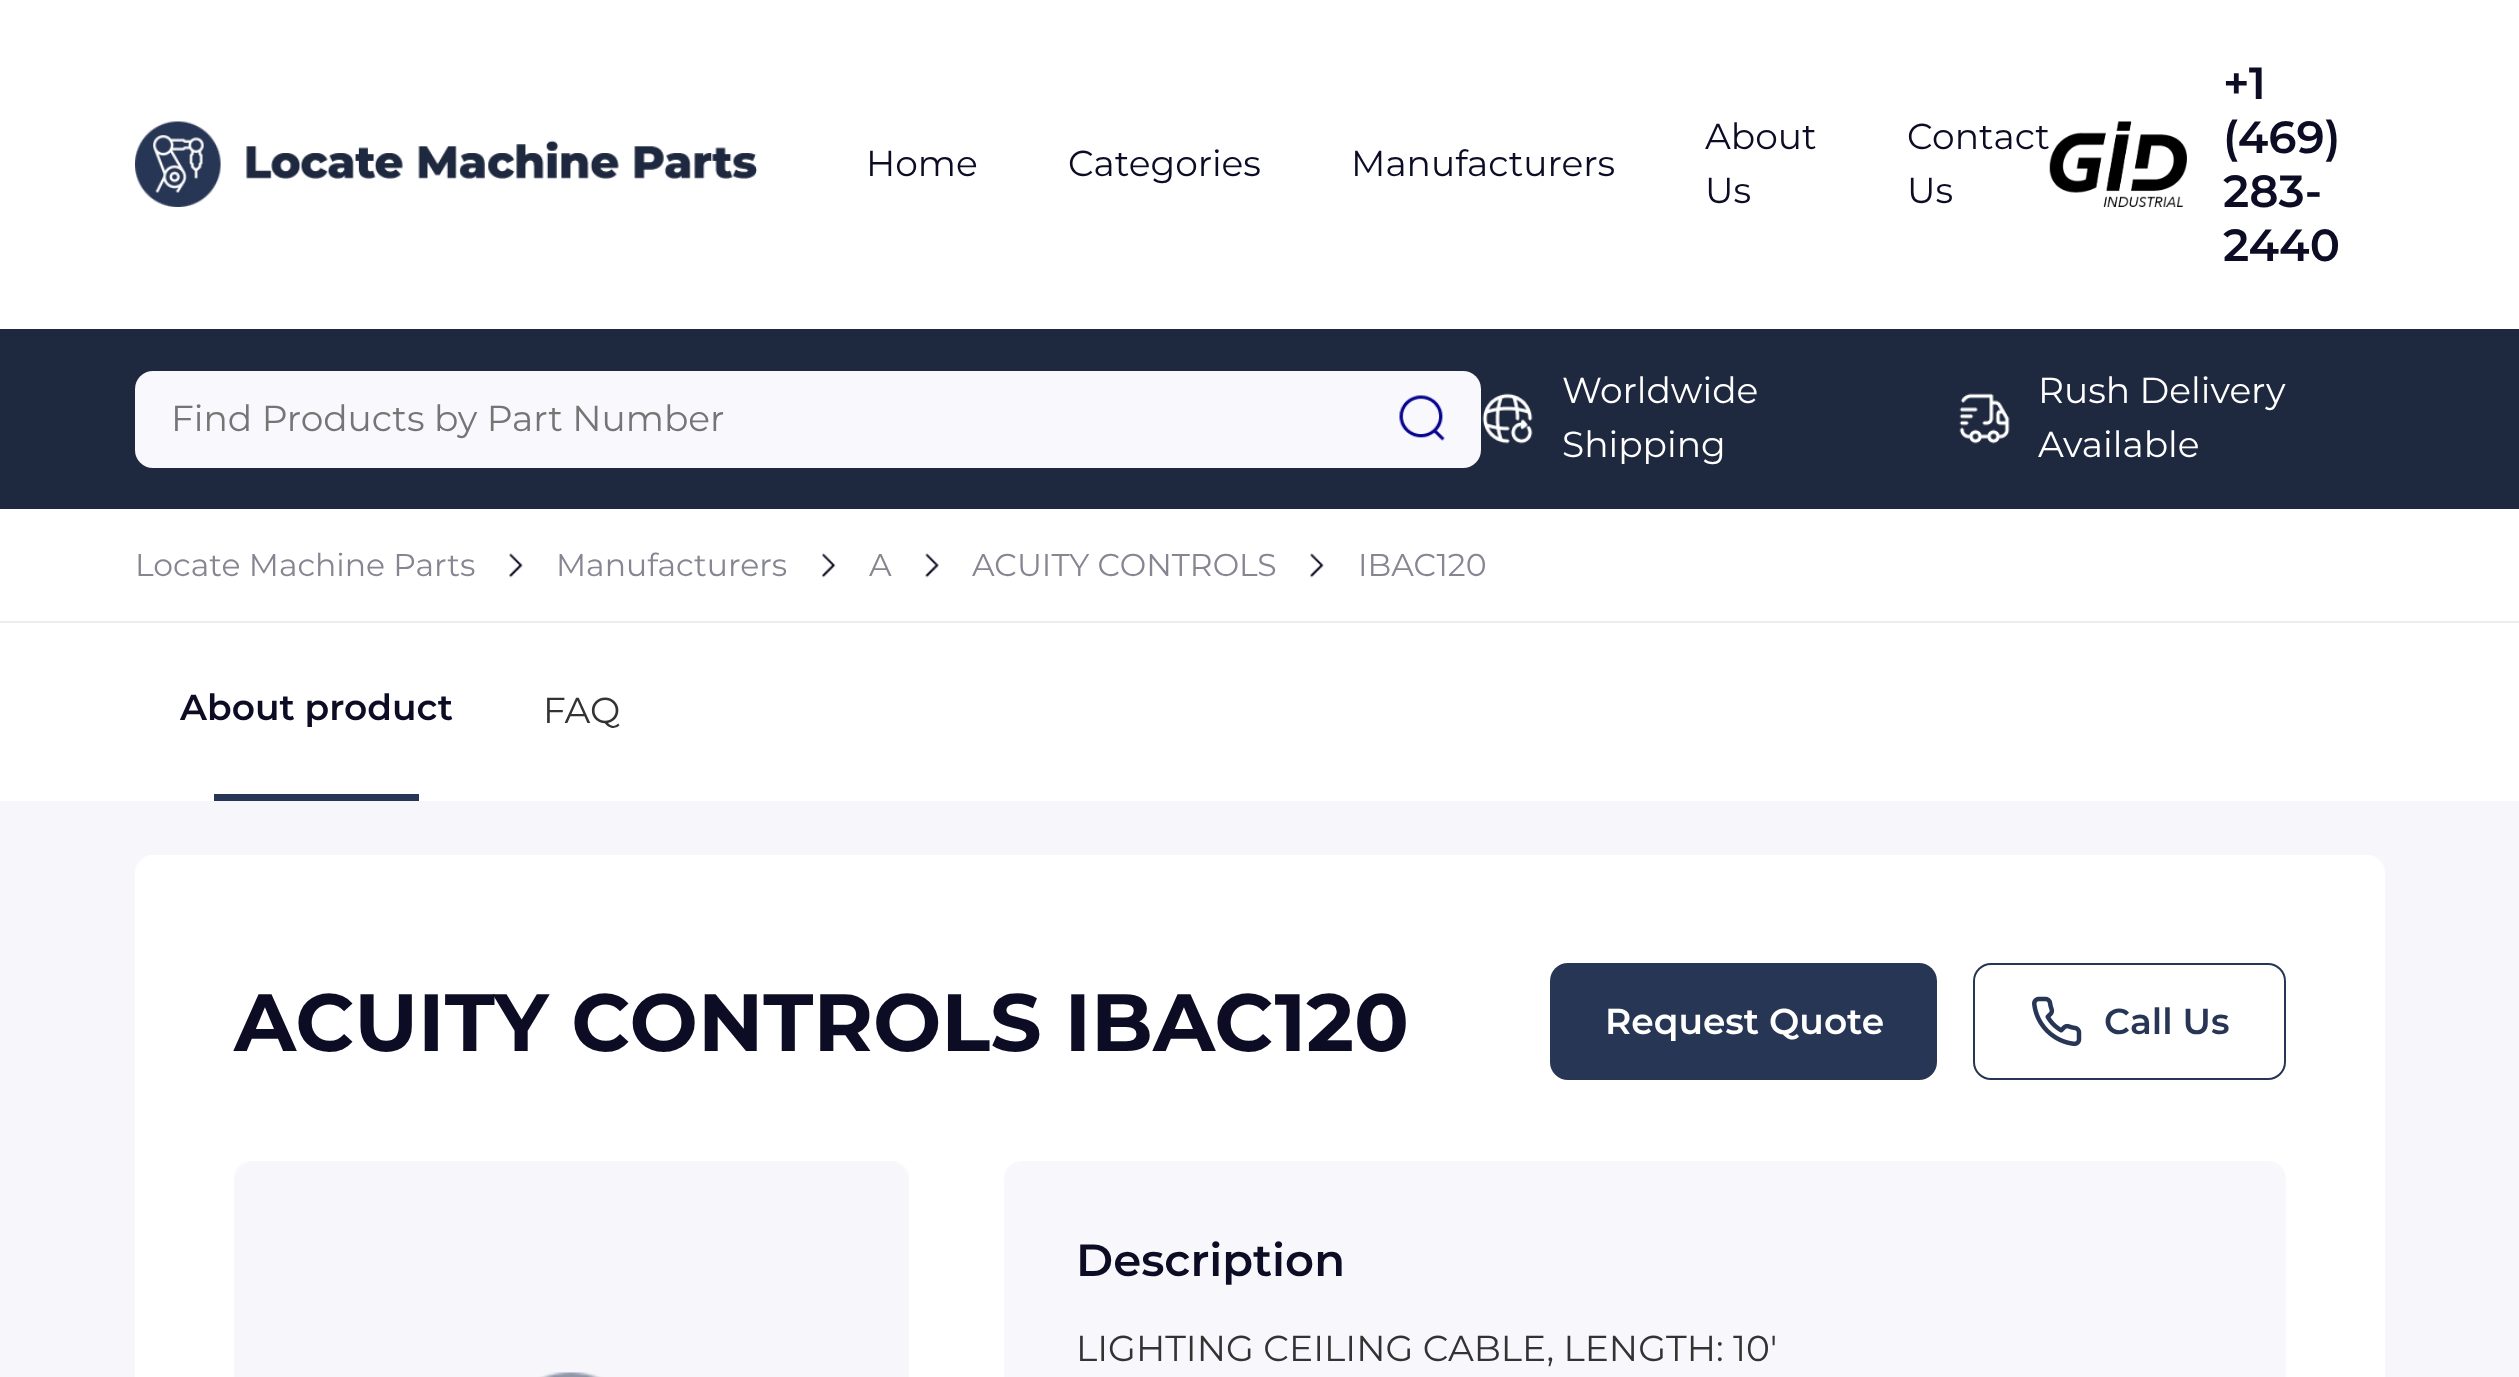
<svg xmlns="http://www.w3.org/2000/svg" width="2519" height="1377">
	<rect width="100%" height="100%" fill="#FFFFFF" />
	<image x="135" y="121" width="623" height="86" href="assets/img1.png" />
	<g font-family="Montserrat" font-size="36" fill="#0C0C24">
		<text x="866" y="176">Home</text>
		<text x="1068" y="176">Categories</text>
		<text x="1351" y="176">Manufacturers</text>
		<text x="1705" y="149">About</text>
		<text x="1705" y="203">Us</text>
		<text x="1907" y="149">Contact</text>
		<text x="1907" y="203">Us</text>
	</g>
	<image x="2049" y="121" width="138" height="86" href="assets/img2.png" />
	<g font-family="Montserrat" font-size="45" font-weight="600" fill="#0C0C24">
		<text x="2223" y="99">+1</text>
		<text x="2223" y="153">(469)</text>
		<text x="2223" y="207">283-</text>
		<text x="2223" y="261">2440</text>
	</g>
	<rect x="0" y="329" width="2519" height="180" fill="#1E283E" />
	<rect x="135" y="371" width="1346" height="97" rx="18" fill="#F9F8FC" />
	<text x="171" y="431" font-family="Montserrat" font-size="36" fill="#757575">Find Products by Part Number</text>
	<image x="1399" y="395" width="46" height="46" href="assets/img3.png" />
	<image x="1482" y="393" width="51" height="51" href="assets/img4.png" />
	<g font-family="Montserrat" font-size="36" fill="#FFFFFF">
		<text x="1562" y="403">Worldwide</text>
		<text x="1562" y="457">Shipping</text>
	</g>
	<image x="1959" y="393" width="51" height="51" href="assets/img5.png" />
	<g font-family="Montserrat" font-size="36" fill="#FFFFFF">
		<text x="2038" y="403">Rush Delivery</text>
		<text x="2038" y="457">Available</text>
	</g>
	<rect x="0" y="621" width="2519" height="2" fill="#EDEDED" />
	<text x="135" y="576" font-family="Montserrat" font-size="31.5" fill="#868692">Locate Machine Parts</text>
	<image x="509" y="553" width="14" height="25" href="assets/img6.png" />
	<text x="556" y="576" font-family="Montserrat" font-size="31.5" fill="#868692">Manufacturers</text>
	<image x="822" y="553" width="14" height="25" href="assets/img7.png" />
	<text x="869" y="576" font-family="Montserrat" font-size="31.5" fill="#868692">A</text>
	<image x="925" y="553" width="14" height="25" href="assets/img8.png" />
	<text x="972" y="576" font-family="Montserrat" font-size="31.5" fill="#868692">ACUITY CONTROLS</text>
	<image x="1310" y="553" width="14" height="25" href="assets/img9.png" />
	<text x="1358" y="576" font-family="Montserrat" font-size="31.5" fill="#868692">IBAC120</text>
	<text x="180" y="720" font-family="Montserrat" font-size="36" font-weight="600" fill="#0C0C24">About product</text>
	<rect x="214" y="794" width="205" height="7" fill="#283655" />
	<text x="543" y="723" font-family="Montserrat" font-size="36" fill="#333333">FAQ</text>
	<rect x="0" y="801" width="2519" height="576" fill="#F7F7FB" />
	<rect x="135" y="855" width="2250" height="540" rx="18" fill="#FFFFFF" />
	<text x="234" y="1051" font-family="Montserrat" font-size="81" font-weight="700" fill="#0C0C24">ACUITY CONTROLS IBAC120</text>
	<rect x="1550" y="963" width="387" height="117" rx="18" fill="#283655" />
	<text x="1605" y="1034" font-family="Montserrat" font-size="36" font-weight="600" fill="#FFFFFF">Request Quote</text>
	<rect x="1974" y="964" width="311" height="115" rx="17" fill="none" stroke="#283655" stroke-width="2" />
	<image x="2032" y="996" width="50" height="51" href="assets/img10.png" />
	<text x="2104" y="1034" font-family="Montserrat" font-size="36" font-weight="600" fill="#283655">Call Us</text>
	<image x="234" y="1161" width="675" height="216" href="assets/img11.png" />
	<rect x="1004" y="1161" width="1282" height="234" rx="18" fill="#F8F8FC" />
	<text x="1076" y="1276" font-family="Montserrat" font-size="45" font-weight="600" fill="#0C0C24">Description</text>
	<text x="1076" y="1361" font-family="Montserrat" font-size="36" fill="#333333">LIGHTING CEILING CABLE, LENGTH: 10'</text>
</svg>
